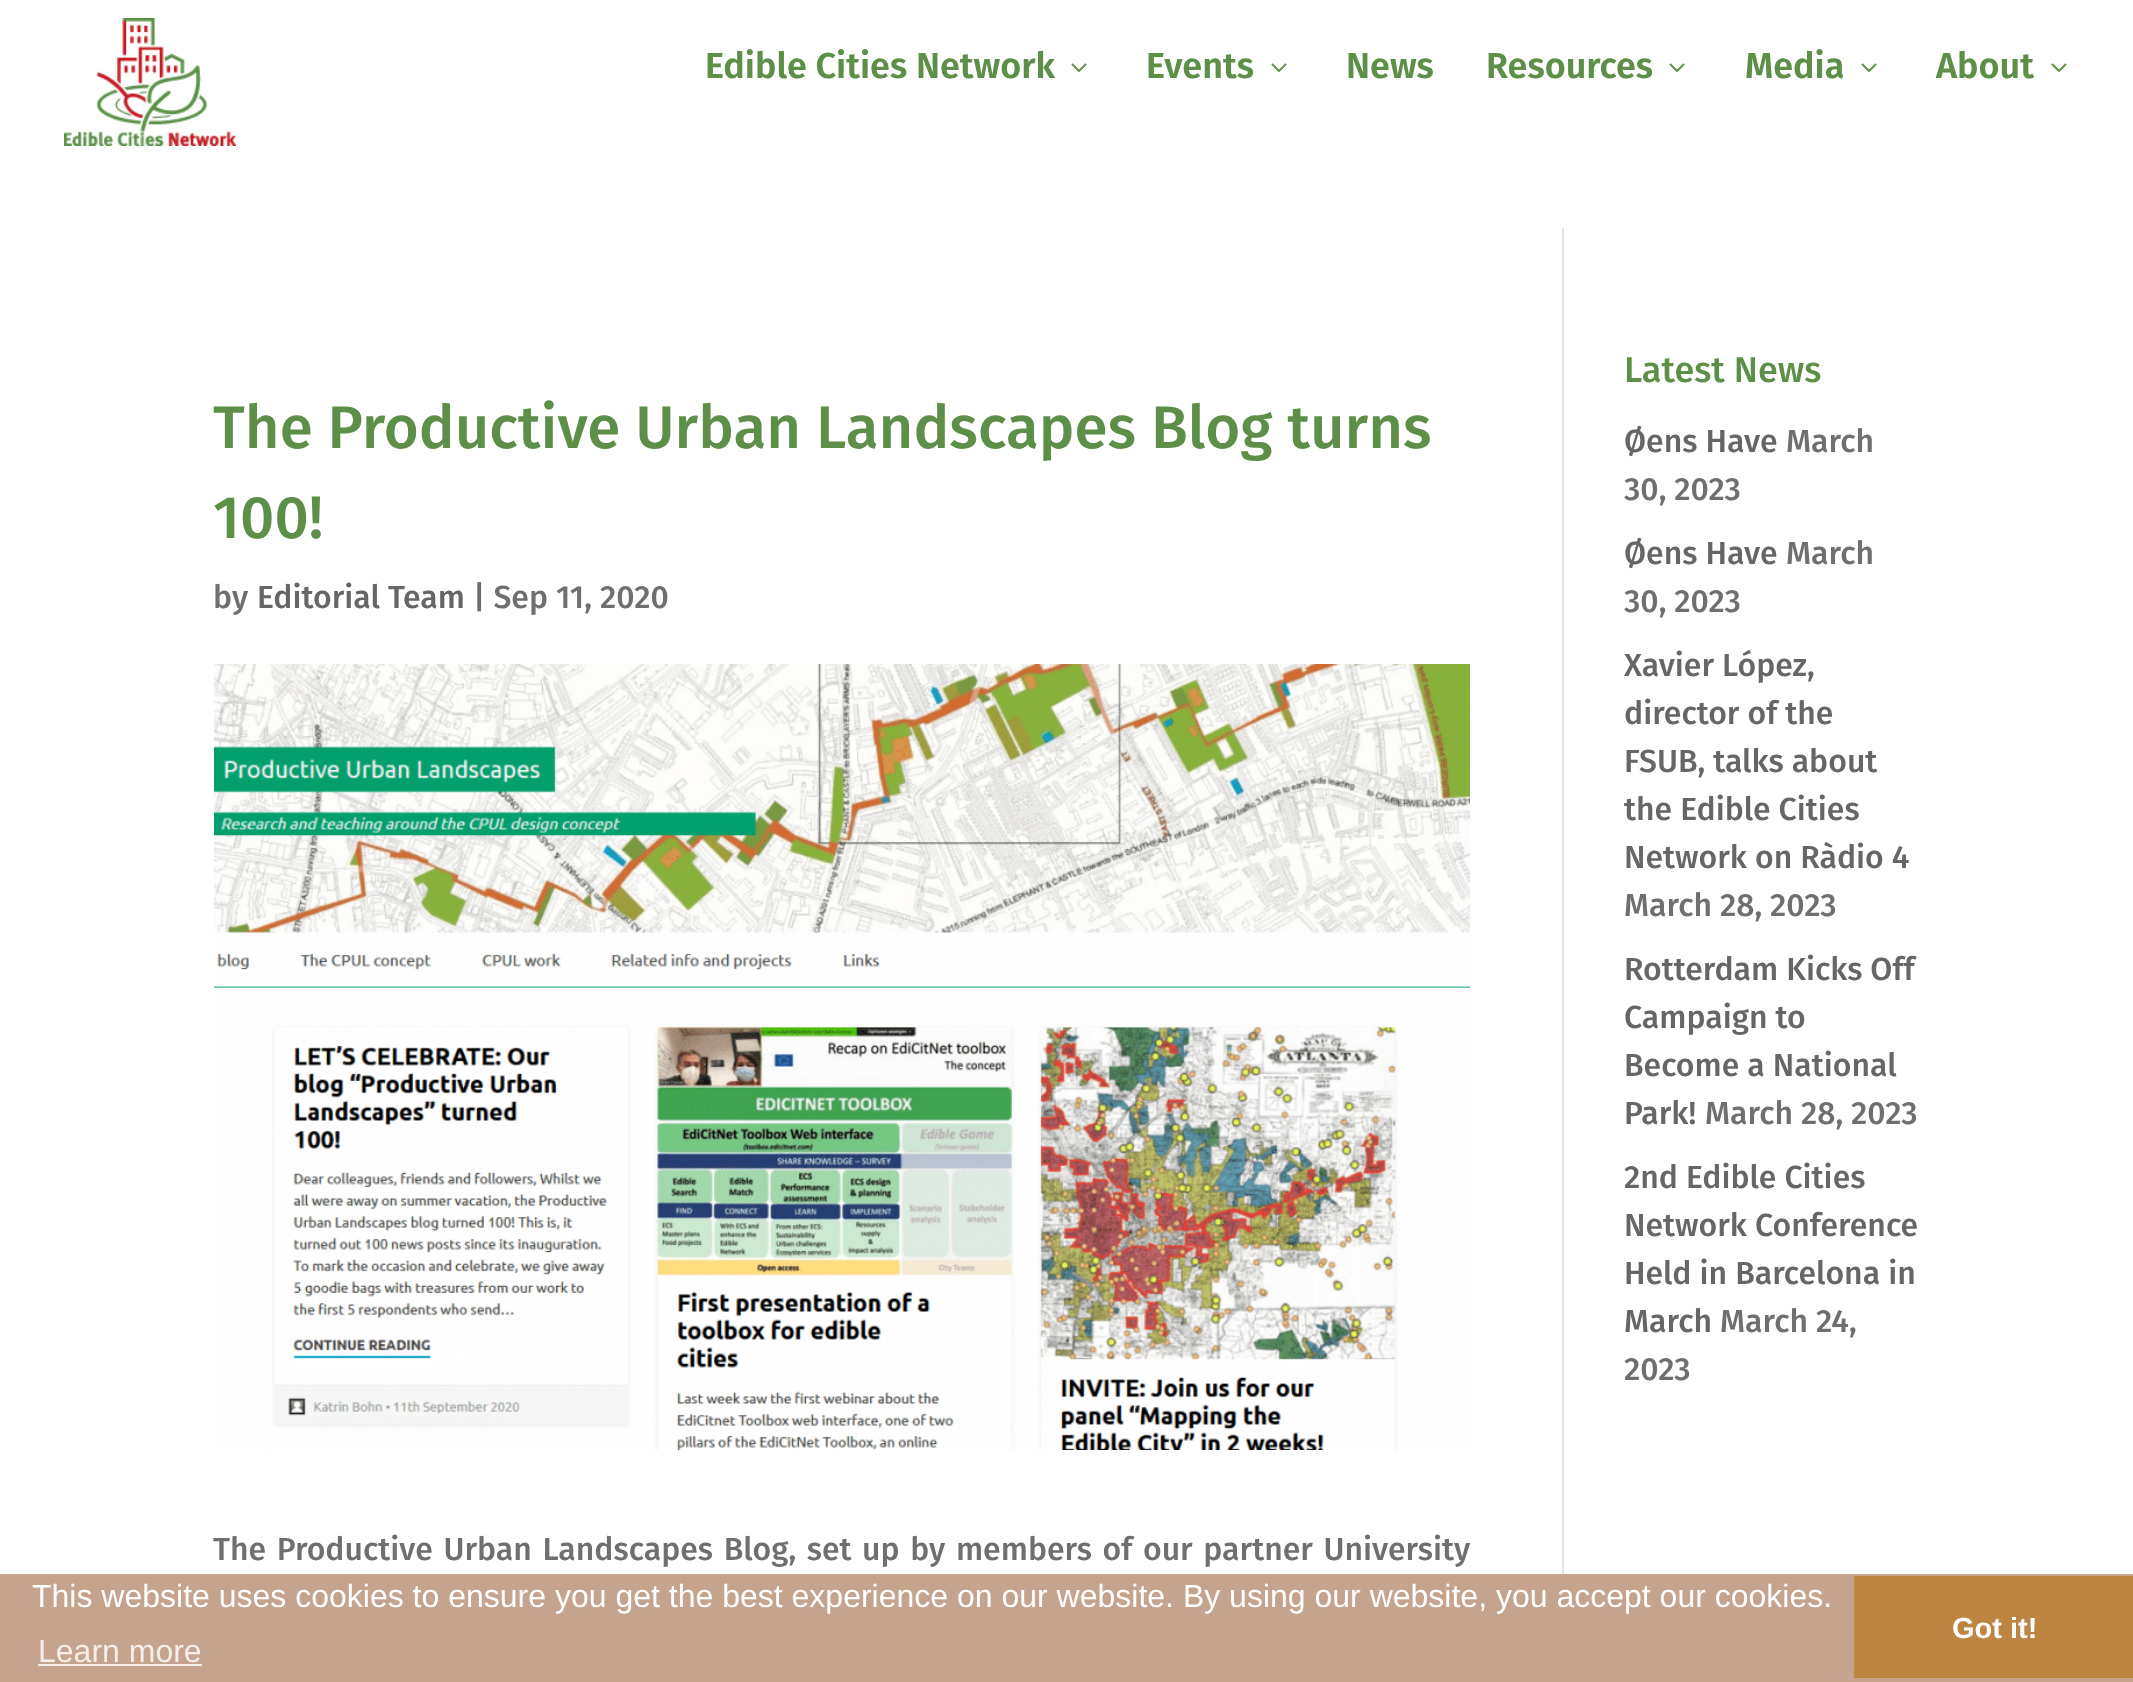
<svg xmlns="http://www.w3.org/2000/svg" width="2133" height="1682">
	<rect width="100%" height="100%" fill="#FFFFFF" />
	<image x="64" y="18" width="172" height="128" href="assets/img1.png" />
	<text x="705" y="78" font-family="Fira Sans" font-size="36" font-weight="600" fill="#5D8F49">Edible Cities Network</text>
	<image x="1071" y="63" width="16" height="9" href="assets/img2.png" />
	<text x="1146" y="78" font-family="Fira Sans" font-size="36" font-weight="600" fill="#5D8F49">Events</text>
	<image x="1271" y="63" width="16" height="9" href="assets/img2.png" />
	<g font-family="Fira Sans" font-size="36" font-weight="600" fill="#5D8F49">
		<text x="1346" y="78">News</text>
		<text x="1486" y="78">Resources</text>
	</g>
	<image x="1669" y="63" width="16" height="9" href="assets/img2.png" />
	<text x="1745" y="78" font-family="Fira Sans" font-size="36" font-weight="600" fill="#5D8F49">Media</text>
	<image x="1861" y="63" width="16" height="9" href="assets/img2.png" />
	<text x="1936" y="78" font-family="Fira Sans" font-size="36" font-weight="600" fill="#5D8F49">About</text>
	<image x="2051" y="63" width="16" height="9" href="assets/img2.png" />
	<rect x="1562" y="228" width="2" height="1346" fill="#E2E2E2" />
	<g font-family="Fira Sans" font-size="60" font-weight="500" fill="#5D8F49">
		<text x="213" y="448">The Productive Urban Landscapes Blog turns</text>
		<text x="213" y="538">100!</text>
	</g>
	<text x="213" y="608" font-family="Fira Sans" font-size="32" font-weight="500" fill="#706F6F">by</text>
	<text x="257" y="608" font-family="Fira Sans" font-size="32" font-weight="500" fill="#666666">Editorial Team</text>
	<text x="473" y="608" font-family="Fira Sans" font-size="32" font-weight="500" fill="#706F6F">| Sep 11, 2020</text>
	<image x="214" y="664" width="1256" height="786" href="assets/img3.png" />
	<text x="213" y="1560" word-spacing="2.6" font-family="Fira Sans" font-size="32" font-weight="500" fill="#706F6F">The Productive Urban Landscapes Blog, set up by members of our partner University</text>
	<text x="1624" y="382" font-family="Fira Sans" font-size="36" font-weight="500" fill="#5D8F49">Latest News</text>
	<text x="1624" y="452" font-family="Fira Sans" font-size="32" font-weight="500" fill="#666666">Øens Have</text>
	<g font-family="Fira Sans" font-size="32" font-weight="500" fill="#706F6F">
		<text x="1786" y="452">March</text>
		<text x="1624" y="500">30, 2023</text>
	</g>
	<text x="1624" y="564" font-family="Fira Sans" font-size="32" font-weight="500" fill="#666666">Øens Have</text>
	<g font-family="Fira Sans" font-size="32" font-weight="500" fill="#706F6F">
		<text x="1786" y="564">March</text>
		<text x="1624" y="612">30, 2023</text>
	</g>
	<g font-family="Fira Sans" font-size="32" font-weight="500" fill="#666666">
		<text x="1624" y="676">Xavier López,</text>
		<text x="1624" y="724">director of the</text>
		<text x="1624" y="772">FSUB, talks about</text>
		<text x="1624" y="820">the Edible Cities</text>
		<text x="1624" y="868">Network on Ràdio 4</text>
	</g>
	<text x="1624" y="916" font-family="Fira Sans" font-size="32" font-weight="500" fill="#706F6F">March 28, 2023</text>
	<g font-family="Fira Sans" font-size="32" font-weight="500" fill="#666666">
		<text x="1624" y="980">Rotterdam Kicks Off</text>
		<text x="1624" y="1028">Campaign to</text>
		<text x="1624" y="1076">Become a National</text>
		<text x="1624" y="1124">Park!</text>
	</g>
	<text x="1705" y="1124" font-family="Fira Sans" font-size="32" font-weight="500" fill="#706F6F">March 28, 2023</text>
	<g font-family="Fira Sans" font-size="32" font-weight="500" fill="#666666">
		<text x="1624" y="1188">2nd Edible Cities</text>
		<text x="1624" y="1236">Network Conference</text>
		<text x="1624" y="1284">Held in Barcelona in</text>
		<text x="1624" y="1332">March</text>
	</g>
	<g font-family="Fira Sans" font-size="32" font-weight="500" fill="#706F6F">
		<text x="1720" y="1332">March 24,</text>
		<text x="1624" y="1380">2023</text>
	</g>
	<rect x="0" y="1574" width="2133" height="108" fill="#C6A38D" />
	<text x="32" y="1607" font-family="Liberation Sans" font-size="32" fill="#FFFFFF">This website uses cookies to ensure you get the best experience on our website. By using our website, you accept our cookies.</text>
	<text x="38" y="1662" font-family="Liberation Sans" font-size="32" fill="#F4EDE8">Learn more</text>
	<rect x="38" y="1664" width="164" height="2" fill="#F4EDE8" />
	<rect x="1854" y="1576" width="279" height="102" fill="#BE8542" />
	<text x="1952" y="1638" font-family="Liberation Sans" font-size="29" font-weight="700" fill="#FFFFFF">Got it!</text>
</svg>
